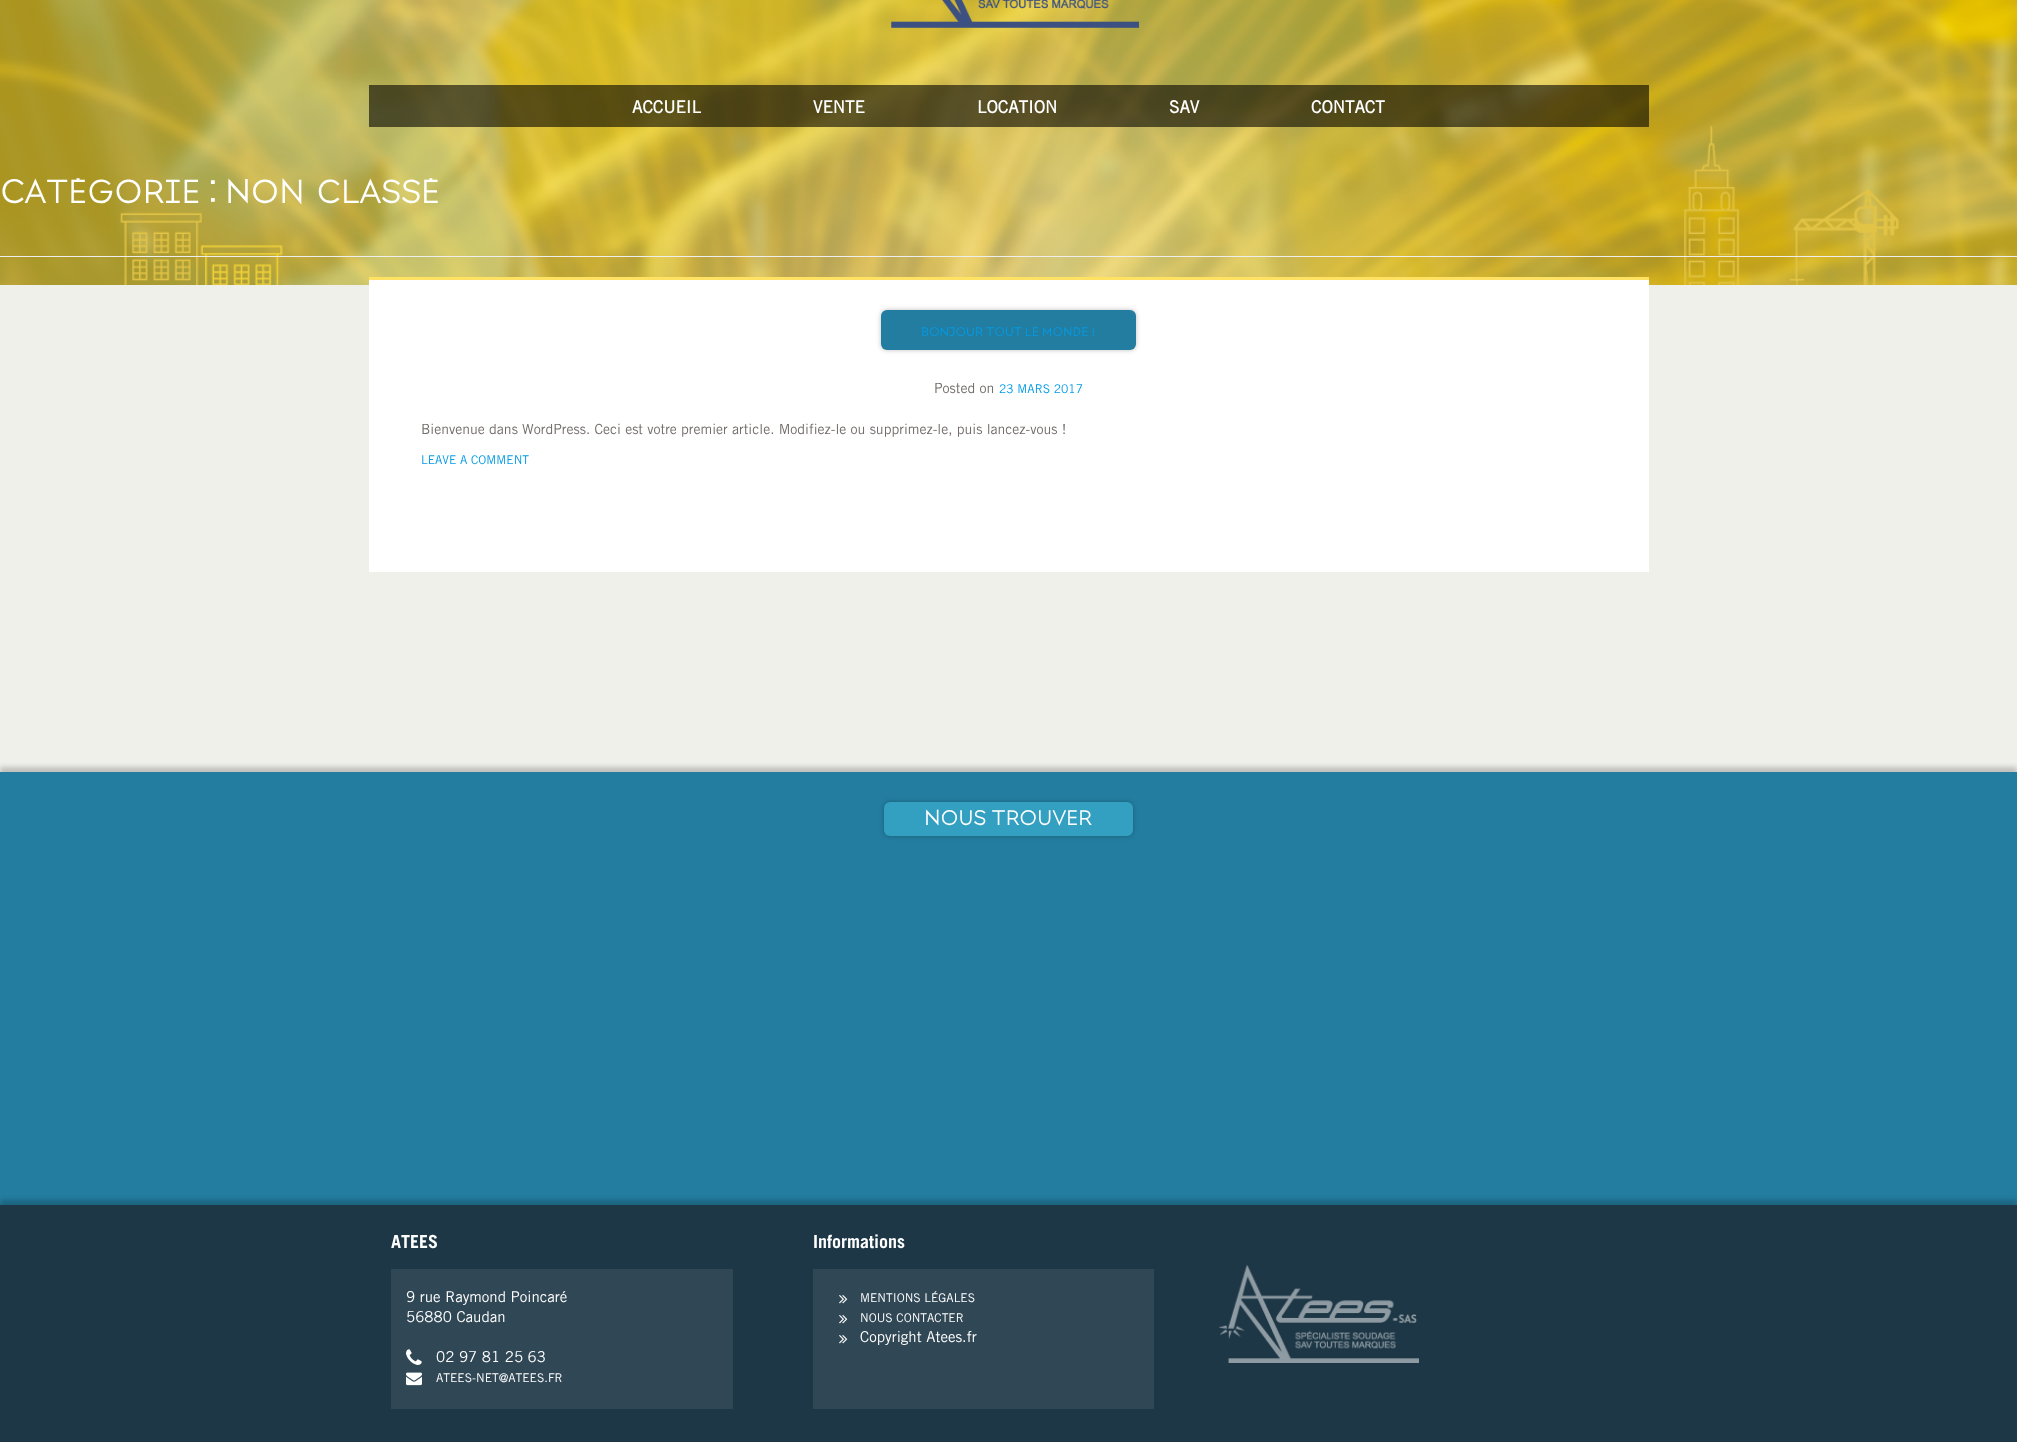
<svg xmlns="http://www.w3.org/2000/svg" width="2017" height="1442">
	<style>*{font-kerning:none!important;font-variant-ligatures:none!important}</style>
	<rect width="100%" height="100%" fill="#F0F0EB" />
	<image x="0" y="0" width="2017" height="285" href="assets/img1.png" />
	<image x="891" y="0" width="248" height="28" href="assets/img2.png" />
	<rect x="369" y="85" width="1280" height="42" fill="#000000" fill-opacity="0.59" />
	<g font-family="'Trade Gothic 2'" font-size="17" font-weight="700" fill="#FFFFFF">
		<text x="632" y="113">ACCUEIL</text>
		<text x="813" y="113">VENTE</text>
		<text x="977" y="113">LOCATION</text>
		<text x="1169" y="113">SAV</text>
		<text x="1311" y="113">CONTACT</text>
	</g>
	<rect x="0" y="256" width="2017" height="1" fill="#EEEEEE" />
	<text x="0" y="203" font-family="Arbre" font-size="33" fill="#FFFFFF">Catégorie : Non</text>
	<text x="317" y="203" font-family="Arbre" font-size="33" fill="#FFFFFF">classé</text>
	<rect x="369" y="280" width="1280" height="292" fill="#FFFFFF" />
	<rect x="369" y="277" width="1280" height="3" fill="#FFE164" />
	<rect x="881" y="310" width="255" height="40" rx="6" fill="#000000" fill-opacity="0.25" filter="blur(2.5px)" />
	<rect x="881" y="310" width="255" height="40" rx="6" fill="#237DA0" />
	<text x="921" y="336" font-family="Arbre" font-size="12" fill="#039BE5">BONJOUR TOUT LE MONDE !</text>
	<text x="934" y="393" font-family="Trade Gothic" font-size="14" fill="#726C6A">Posted on</text>
	<text x="999" y="393" font-family="Trade Gothic" font-size="12" fill="#039BE5">23 MARS 2017</text>
	<text x="421" y="434" font-family="Trade Gothic" font-size="14" fill="#726C6A">Bienvenue dans WordPress. Ceci est votre premier article. Modifiez-le ou supprimez-le, puis lancez-vous !</text>
	<text x="421" y="464" font-family="Trade Gothic" font-size="12" fill="#039BE5">LEAVE A COMMENT</text>
	<rect x="0" y="767" width="2017" height="433" fill="#000000" fill-opacity="0.2" filter="blur(2.5px)" />
	<rect x="0" y="772" width="2017" height="433" fill="#237DA0" />
	<rect x="884" y="802" width="249" height="34" rx="6" fill="#000000" fill-opacity="0.25" filter="blur(2.5px)" />
	<rect x="884" y="802" width="249" height="34" rx="6" fill="#34A0C1" />
	<text x="924" y="825" font-family="Arbre" font-size="21" fill="#FFFFFF">Nous trouver</text>
	<rect x="0" y="1200" width="2017" height="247" fill="#000000" fill-opacity="0.2" filter="blur(2.5px)" />
	<rect x="0" y="1205" width="2017" height="237" fill="#1E3746" />
	<text x="391" y="1248" font-family="Trade Gothic" font-size="18" font-weight="700" fill="#FFFFFF">ATEES</text>
	<rect x="391" y="1269" width="342" height="140" fill="#304755" />
	<g font-family="Trade Gothic" font-size="15" fill="#FFFFFF">
		<text x="406" y="1302">9 rue Raymond Poincaré</text>
		<text x="406" y="1322">56880 Caudan</text>
	</g>
	<image x="406" y="1349" width="16" height="16" href="assets/img3.png" />
	<text x="436" y="1362" font-family="Trade Gothic" font-size="15" fill="#FFFFFF">02 97 81 25 63</text>
	<image x="406" y="1372" width="16" height="14" href="assets/img4.png" />
	<text x="436" y="1382" font-family="Trade Gothic" font-size="12" fill="#FFFFFF">ATEES-NET@ATEES.FR</text>
	<text x="813" y="1248" font-family="Trade Gothic" font-size="18" font-weight="700" fill="#FFFFFF">Informations</text>
	<rect x="813" y="1269" width="341" height="140" fill="#304755" />
	<image x="839" y="1295" width="9" height="9" href="assets/img5.png" />
	<text x="860" y="1302" font-family="Trade Gothic" font-size="12" fill="#FFFFFF">MENTIONS LÉGALES</text>
	<image x="839" y="1315" width="9" height="9" href="assets/img5.png" />
	<text x="860" y="1322" font-family="Trade Gothic" font-size="12" fill="#FFFFFF">NOUS CONTACTER</text>
	<image x="839" y="1335" width="9" height="9" href="assets/img5.png" />
	<text x="860" y="1342" font-family="Trade Gothic" font-size="15" fill="#FFFFFF">Copyright Atees.fr</text>
	<image x="1219" y="1265" width="200" height="98" href="assets/img6.png" />
</svg>
